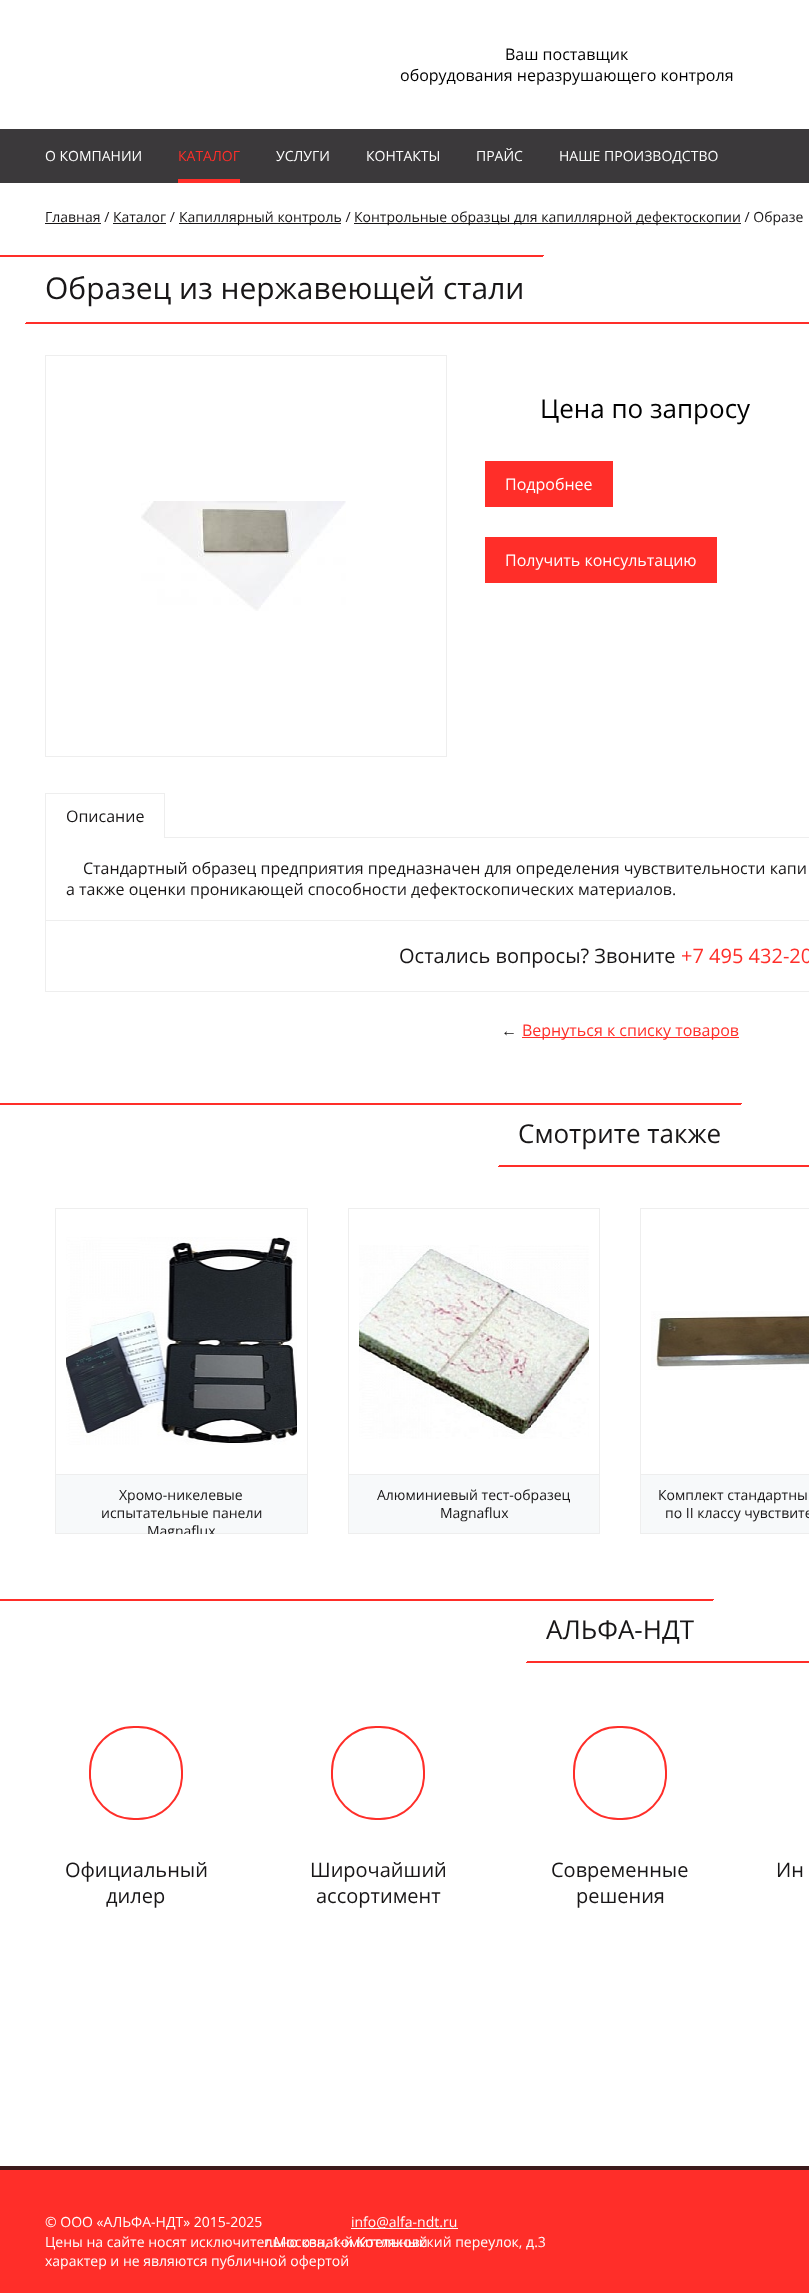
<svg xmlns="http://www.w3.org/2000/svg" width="809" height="2293">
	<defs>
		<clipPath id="clip1"><rect x="55" y="1208" width="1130" height="326" /></clipPath>
	</defs>
	<rect width="100%" height="100%" fill="#FFFFFF" />
	<g font-family="Open Sans" font-size="16" fill="#000000">
		<text x="505" y="60">Ваш поставщик</text>
		<text x="400" y="81">оборудования неразрушающего контроля</text>
	</g>
	<rect x="0" y="129" width="809" height="54" fill="#3B393B" />
	<text x="45" y="161" font-family="Open Sans" font-size="14" fill="#FFFFFF">О КОМПАНИИ</text>
	<text x="178" y="161" font-family="Open Sans" font-size="14" fill="#FF2E29">КАТАЛОГ</text>
	<rect x="178" y="179" width="62" height="4" fill="#FF2E29" />
	<g font-family="Open Sans" font-size="14" fill="#FFFFFF">
		<text x="276" y="161">УСЛУГИ</text>
		<text x="366" y="161">КОНТАКТЫ</text>
		<text x="476" y="161">ПРАЙС</text>
		<text x="559" y="161">НАШЕ ПРОИЗВОДСТВО</text>
	</g>
	<text x="45" y="222" font-family="Open Sans" font-size="14" fill="#181617">Главная / Каталог /</text>
	<rect x="45" y="223" width="56" height="1" fill="#181617" />
	<rect x="179" y="223" width="162" height="1" fill="#181617" />
	<text x="179" y="222" font-family="Open Sans" font-size="14" fill="#181617">Капиллярный контроль /</text>
	<rect x="354" y="223" width="387" height="1" fill="#181617" />
	<text x="354" y="222" font-family="Open Sans" font-size="14" fill="#181617">Контрольные образцы для капиллярной дефектоскопии / Образе</text>
	<rect x="113" y="223" width="53" height="1" fill="#181617" />
	<rect x="0" y="255" width="544" height="1" fill="#FF2E29" />
	<rect x="0" y="256" width="543" height="1" fill="#FF2E29" />
	<text x="45" y="299" font-family="Open Sans" font-size="30" fill="#181617">Образец из нержавеющей стали</text>
	<rect x="26" y="322" width="783" height="1" fill="#FF2E29" />
	<rect x="25" y="323" width="784" height="1" fill="#FF2E29" />
	<rect x="45.5" y="355.5" width="401" height="401" fill="none" stroke="#EEEEEE" />
	<image x="141" y="501" width="205" height="110" href="assets/img1.png" />
	<text x="540" y="418" font-family="Open Sans" font-size="26" fill="#000000">Цена по запросу</text>
	<rect x="485" y="461" width="128" height="46" fill="#FF2E29" />
	<text x="505" y="490" font-family="Open Sans" font-size="16" fill="#FFFFFF">Подробнее</text>
	<rect x="485" y="537" width="232" height="46" fill="#FF2E29" />
	<text x="505" y="566" font-family="Open Sans" font-size="16" fill="#FFFFFF">Получить консультацию</text>
	<rect x="45.5" y="837.5" width="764" height="83" fill="none" stroke="#EEEEEE" />
	<rect x="46" y="837" width="118" height="1" fill="#FFFFFF" />
	<rect x="45" y="793" width="120" height="1" fill="#EEEEEE" />
	<rect x="164" y="793" width="1" height="45" fill="#EEEEEE" />
	<rect x="45" y="793" width="1" height="45" fill="#EEEEEE" />
	<g font-family="Open Sans" font-size="16" fill="#181617">
		<text x="66" y="822">Описание</text>
		<text x="83" y="874">Стандартный образец предприятия предназначен для определения чувствительности капи</text>
		<text x="66" y="895">а также оценки проникающей способности дефектоскопических материалов.</text>
	</g>
	<rect x="45" y="991" width="764" height="1" fill="#EEEEEE" />
	<rect x="45" y="921" width="1" height="71" fill="#EEEEEE" />
	<text x="399" y="963" font-family="Open Sans" font-size="20" fill="#181617">Остались вопросы? Звоните</text>
	<text x="681" y="963" font-family="Open Sans" font-size="20" fill="#FF2E29">+7 495 432-20</text>
	<text x="501" y="1036" font-family="Liberation Sans" font-size="16" fill="#181617">←</text>
	<rect x="522" y="1037" width="217" height="1" fill="#FF2E29" />
	<text x="522" y="1036" font-family="Open Sans" font-size="16" fill="#FF2E29">Вернуться к списку товаров</text>
	<rect x="0" y="1103" width="742" height="1" fill="#FF2E29" />
	<rect x="0" y="1104" width="741" height="1" fill="#FF2E29" />
	<text x="518" y="1143" font-family="Open Sans" font-size="26" fill="#181617">Смотрите также</text>
	<rect x="499" y="1165" width="310" height="1" fill="#FF2E29" />
	<rect x="498" y="1166" width="311" height="1" fill="#FF2E29" />
	<rect x="55.5" y="1208.5" width="252" height="325" fill="none" stroke="#EEEEEE" />
	<image x="66" y="1237" width="231" height="208" href="assets/img2.png" />
	<rect x="56" y="1475" width="251" height="58" fill="#F7F9FA" />
	<rect x="56" y="1474" width="251" height="1" fill="#EEEEEE" />
	<g font-family="Open Sans" font-size="14" fill="#181617">
		<text x="119" y="1500">Хромо-никелевые</text>
		<text x="101" y="1518">испытательные панели</text>
	</g>
	<g clip-path="url(#clip1)">
		<text x="147" y="1536" font-family="Open Sans" font-size="14" fill="#181617">Magnaflux</text>
	</g>
	<rect x="348.5" y="1208.5" width="251" height="325" fill="none" stroke="#EEEEEE" />
	<image x="359" y="1245" width="230" height="194" href="assets/img3.png" />
	<rect x="349" y="1475" width="250" height="58" fill="#F7F9FA" />
	<rect x="349" y="1474" width="250" height="1" fill="#EEEEEE" />
	<g font-family="Open Sans" font-size="14" fill="#181617">
		<text x="377" y="1500">Алюминиевый тест-образец</text>
		<text x="440" y="1518">Magnaflux</text>
	</g>
	<rect x="640.5" y="1208.5" width="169" height="325" fill="none" stroke="#EEEEEE" />
	<image x="651" y="1311" width="158" height="59" href="assets/img4.png" />
	<rect x="641" y="1475" width="168" height="58" fill="#F7F9FA" />
	<rect x="641" y="1474" width="168" height="1" fill="#EEEEEE" />
	<g font-family="Open Sans" font-size="14" fill="#181617">
		<text x="658" y="1500">Комплект стандартны</text>
		<text x="665" y="1518">по II классу чувствите</text>
	</g>
	<rect x="0" y="1599" width="714" height="1" fill="#FF2E29" />
	<rect x="0" y="1600" width="713" height="1" fill="#FF2E29" />
	<text x="546" y="1639" font-family="Open Sans" font-size="26" fill="#181617">АЛЬФА-НДТ</text>
	<rect x="527" y="1661" width="282" height="1" fill="#FF2E29" />
	<rect x="526" y="1662" width="283" height="1" fill="#FF2E29" />
	<rect x="90" y="1727" width="92" height="92" rx="44" fill="none" stroke="#FF2E29" stroke-width="2" />
	<g font-family="Open Sans" font-size="20" fill="#181617">
		<text x="65" y="1877">Официальный</text>
		<text x="106" y="1903">дилер</text>
	</g>
	<rect x="332" y="1727" width="92" height="92" rx="44" fill="none" stroke="#FF2E29" stroke-width="2" />
	<g font-family="Open Sans" font-size="20" fill="#181617">
		<text x="310" y="1877">Широчайший</text>
		<text x="316" y="1903">ассортимент</text>
	</g>
	<rect x="574" y="1727" width="92" height="92" rx="44" fill="none" stroke="#FF2E29" stroke-width="2" />
	<g font-family="Open Sans" font-size="20" fill="#181617">
		<text x="551" y="1877">Современные</text>
		<text x="576" y="1903">решения</text>
		<text x="776" y="1877">Ин</text>
	</g>
	<rect x="0" y="2170" width="809" height="123" fill="#FF2E29" />
	<rect x="0" y="2166" width="809" height="4" fill="#3B1A1B" />
	<g font-family="Open Sans" font-size="14" fill="#FFFFFF">
		<text x="45" y="2227">© ООО «АЛЬФА-НДТ» 2015-2025</text>
		<text x="264" y="2247">г.Москва, 1-й Котляковский переулок, д.3</text>
		<text x="45" y="2247">Цены на сайте носят исключительно ознакомительный</text>
		<text x="45" y="2266">характер и не являются публичной офертой</text>
	</g>
	<rect x="351" y="2228" width="107" height="1" fill="#FFFFFF" />
	<text x="351" y="2227" font-family="Open Sans" font-size="14" fill="#FFFFFF">info@alfa-ndt.ru</text>
</svg>
